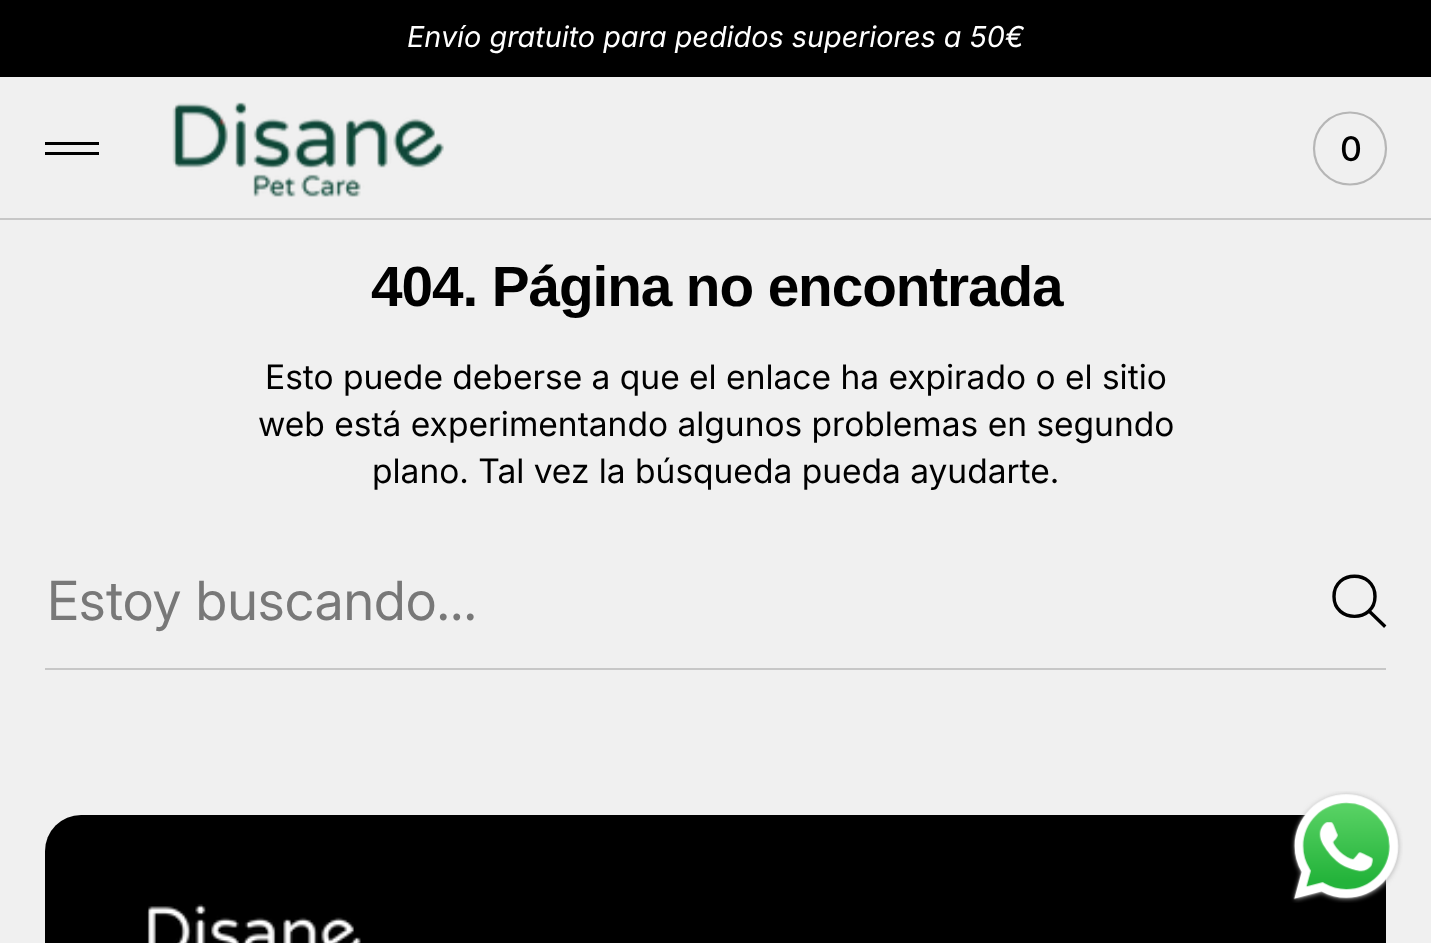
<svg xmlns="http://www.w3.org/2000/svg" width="1431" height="943">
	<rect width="100%" height="100%" fill="#F0F0F0" />
	<rect x="0" y="0" width="1431" height="77" fill="#000000" />
	<text x="407" y="47" font-family="Inter" font-size="28.8" font-style="italic" fill="#FFFFFF">Envío gratuito para pedidos superiores a 50€</text>
	<rect x="45" y="142" width="54" height="3" fill="#000000" />
	<rect x="45" y="152" width="54" height="3" fill="#000000" />
	<image x="172" y="102" width="272" height="95" href="assets/img1.png" />
	<text x="1340" y="161" font-family="Inter" font-size="34" font-weight="500" letter-spacing="-1" fill="#000000">0</text>
	<path d="M1314 148.5C1314 128.5 1330 112.5 1350 112.5C1370 112.5 1386 128.5 1386 148.5C1386 168.5 1370 184.5 1350 184.5C1330 184.5 1314 168.5 1314 148.5Z" fill="none" stroke="#B6B6B6" stroke-width="2.2" />
	<rect x="0" y="218" width="1431" height="2" fill="#C7C7C7" />
	<text x="371" y="306" font-family="Liberation Sans" font-size="56.75" font-weight="700" letter-spacing="-1.1" fill="#000000">404. Página no encontrada</text>
	<g font-family="Inter" font-size="33.65" fill="#000000">
		<text x="265" y="389">Esto puede deberse a que el enlace ha expirado o el sitio</text>
		<text x="258" y="436">web está experimentando algunos problemas en segundo</text>
		<text x="372" y="483">plano. Tal vez la búsqueda pueda ayudarte.</text>
	</g>
	<rect x="45" y="668" width="1341" height="2" fill="#C7C7C7" />
	<text x="47" y="620" font-family="'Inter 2'" font-size="54" fill="#787878">Estoy buscando...</text>
	<path d="M1369 611L1384 625.5M1375 596.5C1375 623 1334 623 1334 596.5C1334 569.5 1375 569.5 1375 596.5Z" fill="none" stroke="#000000" stroke-width="3.4" stroke-linecap="square" />
	<rect x="45" y="815" width="1341" height="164" rx="36" fill="#000000" />
	<image x="1290" y="791" width="113" height="112" href="assets/img2.png" />
	<image x="147" y="904" width="214" height="39" href="assets/img3.png" />
</svg>
